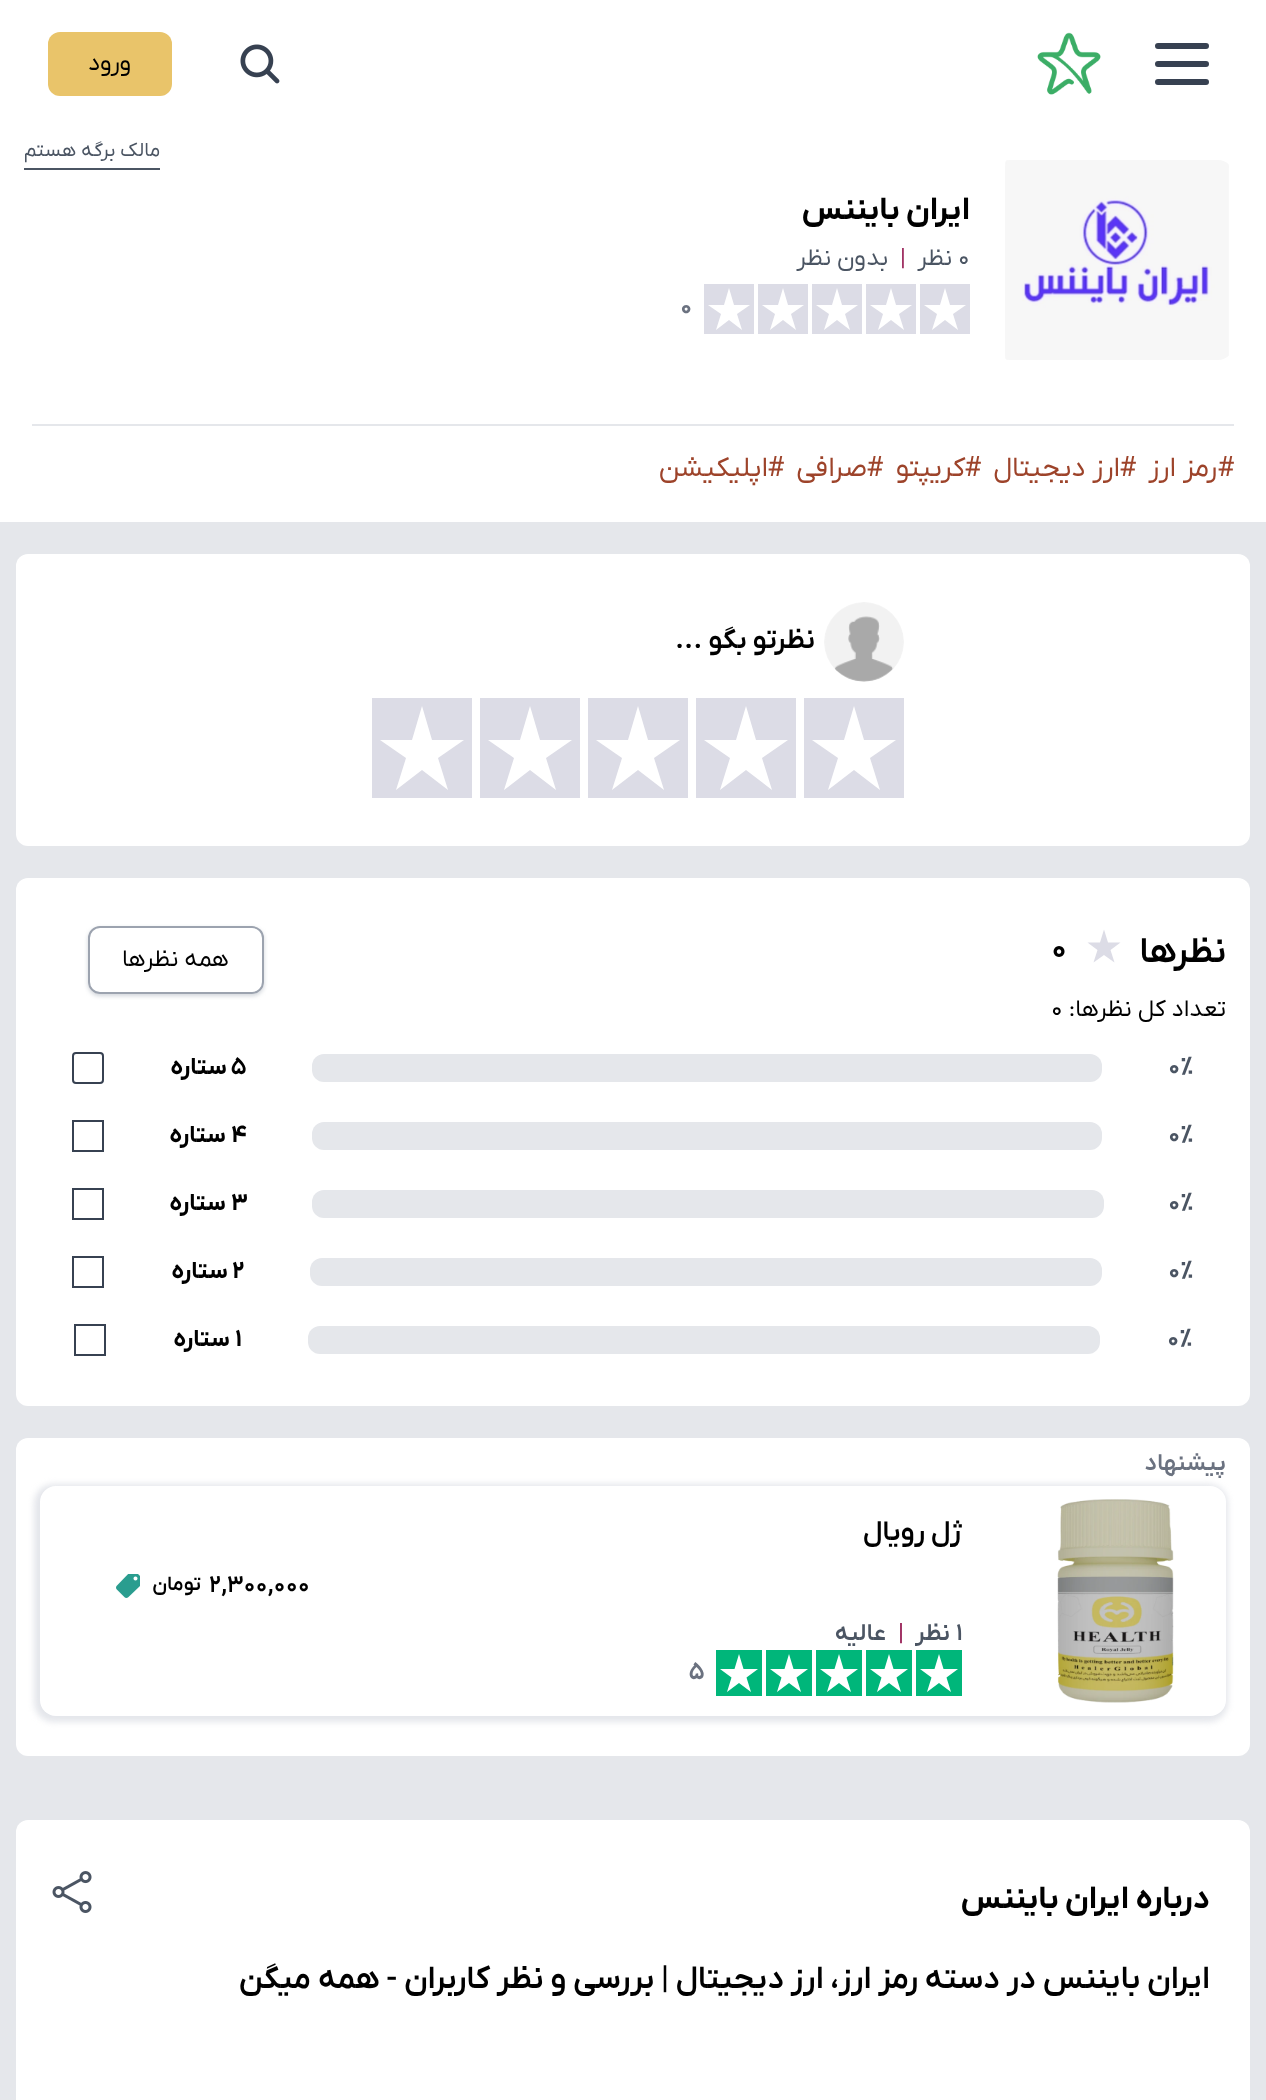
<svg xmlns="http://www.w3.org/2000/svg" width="1266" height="2100">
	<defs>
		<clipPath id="clip1"><path d="M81 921H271V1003H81ZM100 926H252C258.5 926 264 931.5 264 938V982C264 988.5 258.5 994 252 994H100C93.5 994 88 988.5 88 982V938C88 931.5 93.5 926 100 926Z" clip-rule="evenodd" /></clipPath>
	</defs>
	<rect width="100%" height="100%" fill="#FFFFFF" />
	<path d="M1158 46H1206M1158 64H1206M1158 82H1206" fill="none" stroke="#374151" stroke-width="6" stroke-linecap="round" stroke-linejoin="round" />
	<image x="1037" y="32" width="64" height="63" href="assets/img1.png" />
	<image x="240" y="44" width="40" height="40" href="assets/img2.png" />
	<rect x="48" y="32" width="124" height="64" rx="12" fill="#E9C46A" />
	<text x="131" y="70" font-family="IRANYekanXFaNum" font-size="24" direction="rtl" fill="#000000">ورود</text>
	<rect x="0" y="522" width="1266" height="1578" fill="#E5E7EB" />
	<text x="160" y="156" font-family="IRANYekanXFaNum" font-size="20" direction="rtl" fill="#4B5563">مالک برگه هستم</text>
	<rect x="24" y="168" width="136" height="2" fill="#4B5563" />
	<image x="1005" y="160" width="224" height="200" href="assets/img3.png" />
	<text x="970" y="219" font-family="IRANYekanXFaNum" font-size="32" font-weight="700" direction="rtl" fill="#000000">ایران بایننس</text>
	<text x="958" y="265" font-family="IRANYekanXFaNum" font-size="24" fill="#4B5563">0</text>
	<text x="952" y="265" font-family="IRANYekanXFaNum" font-size="24" direction="rtl" fill="#4B5563">نظر</text>
	<text x="900" y="265" font-family="IRANYekanXFaNum" font-size="24" fill="#9D2A5E">|</text>
	<text x="888" y="265" font-family="IRANYekanXFaNum" font-size="24" direction="rtl" fill="#4B5563">بدون نظر</text>
	<rect x="920" y="284" width="50" height="50" fill="#DCDCE6" />
	<path d="M950 305L945 288L940 305H924L937 314L932 330L945 320L958 330L953 314L966 305Z" fill="#FFFFFF" />
	<rect x="866" y="284" width="50" height="50" fill="#DCDCE6" />
	<path d="M896 305L891 288L886 305H870L883 314L878 330L891 320L904 330L899 314L912 305Z" fill="#FFFFFF" />
	<rect x="812" y="284" width="50" height="50" fill="#DCDCE6" />
	<path d="M842 305L837 288L832 305H816L829 314L824 330L837 320L850 330L845 314L858 305Z" fill="#FFFFFF" />
	<rect x="758" y="284" width="50" height="50" fill="#DCDCE6" />
	<path d="M788 305L783 288L778 305H762L775 314L770 330L783 320L796 330L791 314L804 305Z" fill="#FFFFFF" />
	<rect x="704" y="284" width="50" height="50" fill="#DCDCE6" />
	<path d="M734 305L729 288L724 305H708L721 314L716 330L729 320L742 330L737 314L750 305Z" fill="#FFFFFF" />
	<text x="680" y="314" font-family="IRANYekanXFaNum" font-size="24" font-weight="700" fill="#6B7280">0</text>
	<rect x="32" y="424" width="1202" height="2" fill="#E5E7EB" />
	<text x="1218" y="476" font-family="IRANYekanXFaNum" font-size="28" fill="#9D432A">#</text>
	<text x="1217" y="476" font-family="IRANYekanXFaNum" font-size="28" direction="rtl" fill="#9D432A">رمز ارز</text>
	<text x="1120" y="476" font-family="IRANYekanXFaNum" font-size="28" fill="#9D432A">#</text>
	<text x="1120" y="476" font-family="IRANYekanXFaNum" font-size="28" direction="rtl" fill="#9D432A">ارز دیجیتال</text>
	<text x="965" y="476" font-family="IRANYekanXFaNum" font-size="28" fill="#9D432A">#</text>
	<text x="965" y="476" font-family="IRANYekanXFaNum" font-size="28" direction="rtl" fill="#9D432A">کریپتو</text>
	<text x="867" y="476" font-family="IRANYekanXFaNum" font-size="28" fill="#9D432A">#</text>
	<text x="867" y="476" font-family="IRANYekanXFaNum" font-size="28" direction="rtl" fill="#9D432A">صرافی</text>
	<text x="768" y="476" font-family="IRANYekanXFaNum" font-size="28" fill="#9D432A">#</text>
	<text x="768" y="476" font-family="IRANYekanXFaNum" font-size="28" direction="rtl" fill="#9D432A">اپلیکیشن</text>
	<rect x="16" y="554" width="1234" height="292" rx="12" fill="#FFFFFF" />
	<image x="824" y="602" width="80" height="80" href="assets/img4.png" />
	<text x="815" y="648" font-family="IRANYekanXFaNum" font-size="28" font-weight="600" direction="rtl" fill="#000000">نظرتو بگو ...</text>
	<rect x="804" y="698" width="100" height="100" fill="#DCDCE6" />
	<path d="M864 740L854 706L844 740H812L838 758L828 790L854 770L880 790L870 758L896 740Z" fill="#FFFFFF" />
	<rect x="696" y="698" width="100" height="100" fill="#DCDCE6" />
	<path d="M756 740L746 706L736 740H704L730 758L720 790L746 770L772 790L762 758L788 740Z" fill="#FFFFFF" />
	<rect x="588" y="698" width="100" height="100" fill="#DCDCE6" />
	<path d="M648 740L638 706L628 740H596L622 758L612 790L638 770L664 790L654 758L680 740Z" fill="#FFFFFF" />
	<rect x="480" y="698" width="100" height="100" fill="#DCDCE6" />
	<path d="M540 740L530 706L520 740H488L514 758L504 790L530 770L556 790L546 758L572 740Z" fill="#FFFFFF" />
	<rect x="372" y="698" width="100" height="100" fill="#DCDCE6" />
	<path d="M432 740L422 706L412 740H380L406 758L396 790L422 770L448 790L438 758L464 740Z" fill="#FFFFFF" />
	<rect x="16" y="878" width="1234" height="528" rx="12" fill="#FFFFFF" />
	<text x="1226" y="962" font-family="IRANYekanXFaNum" font-size="36" font-weight="600" direction="rtl" fill="#000000">نظرها</text>
	<path d="M1108 942.5L1104 929.5L1100 942.5H1087.5L1097.5 950L1093.5 962.5L1104 955L1114.5 962.5L1110.5 950L1120.5 942.5Z" fill="#DCDCE6" />
	<text x="1051" y="958" font-family="IRANYekanXFaNum" font-size="32" font-weight="600" fill="#000000">0</text>
	<g clip-path="url(#clip1)">
		<rect x="88" y="928" width="176" height="68" rx="12" fill="#D1D5DB" filter="blur(2px)" />
	</g>
	<rect x="89" y="927" width="174" height="66" rx="11" fill="none" stroke="#9CA3AF" stroke-width="2" />
	<g font-family="IRANYekanXFaNum" font-size="24" direction="rtl" fill="#000000">
		<text x="229" y="966">همه نظرها</text>
		<text x="1226" y="1016">تعداد کل نظرها:</text>
	</g>
	<text x="1051" y="1016" font-family="IRANYekanXFaNum" font-size="24" fill="#000000">0</text>
	<text x="1168" y="1074" font-family="IRANYekanXFaNum" font-size="24" font-weight="700" fill="#4B5563">0%</text>
	<rect x="312" y="1054" width="790" height="28" rx="12" fill="#E5E7EB" />
	<text x="231" y="1074" font-family="IRANYekanXFaNum" font-size="24" font-weight="700" fill="#000000">5</text>
	<text x="227" y="1074" font-family="IRANYekanXFaNum" font-size="24" font-weight="700" direction="rtl" fill="#000000">ستاره</text>
	<rect x="73" y="1053" width="30" height="30" rx="3" fill="none" stroke="#374151" stroke-width="2" />
	<text x="1168" y="1142" font-family="IRANYekanXFaNum" font-size="24" font-weight="700" fill="#4B5563">0%</text>
	<rect x="312" y="1122" width="790" height="28" rx="12" fill="#E5E7EB" />
	<text x="231" y="1142" font-family="IRANYekanXFaNum" font-size="24" font-weight="700" fill="#000000">4</text>
	<text x="226" y="1142" font-family="IRANYekanXFaNum" font-size="24" font-weight="700" direction="rtl" fill="#000000">ستاره</text>
	<rect x="73" y="1121" width="30" height="30" fill="none" stroke="#374151" stroke-width="2" />
	<text x="1168" y="1210" font-family="IRANYekanXFaNum" font-size="24" font-weight="700" fill="#4B5563">0%</text>
	<rect x="312" y="1190" width="792" height="28" rx="12" fill="#E5E7EB" />
	<text x="231" y="1210" font-family="IRANYekanXFaNum" font-size="24" font-weight="700" fill="#000000">3</text>
	<text x="226" y="1210" font-family="IRANYekanXFaNum" font-size="24" font-weight="700" direction="rtl" fill="#000000">ستاره</text>
	<rect x="73" y="1189" width="30" height="30" fill="none" stroke="#374151" stroke-width="2" />
	<text x="1168" y="1278" font-family="IRANYekanXFaNum" font-size="24" font-weight="700" fill="#4B5563">0%</text>
	<rect x="310" y="1258" width="792" height="28" rx="12" fill="#E5E7EB" />
	<text x="232" y="1278" font-family="IRANYekanXFaNum" font-size="24" font-weight="700" fill="#000000">2</text>
	<text x="228" y="1278" font-family="IRANYekanXFaNum" font-size="24" font-weight="700" direction="rtl" fill="#000000">ستاره</text>
	<rect x="73" y="1257" width="30" height="30" fill="none" stroke="#374151" stroke-width="2" />
	<text x="1167" y="1346" font-family="IRANYekanXFaNum" font-size="24" font-weight="700" fill="#4B5563">0%</text>
	<rect x="308" y="1326" width="792" height="28" rx="12" fill="#E5E7EB" />
	<text x="235" y="1346" font-family="IRANYekanXFaNum" font-size="24" font-weight="700" fill="#000000">1</text>
	<text x="230" y="1346" font-family="IRANYekanXFaNum" font-size="24" font-weight="700" direction="rtl" fill="#000000">ستاره</text>
	<rect x="75" y="1325" width="30" height="30" fill="none" stroke="#374151" stroke-width="2" />
	<rect x="16" y="1438" width="1234" height="318" rx="12" fill="#FFFFFF" />
	<text x="1226" y="1470" font-family="IRANYekanXFaNum" font-size="24" font-weight="600" direction="rtl" fill="#6B7280">پیشنهاد</text>
	<rect x="34" y="1484" width="1194" height="238" rx="20" fill="#E4E6EB" filter="blur(3px)" />
	<rect x="40" y="1486" width="1186" height="230" rx="16" fill="#FFFFFF" />
	<image x="1057" y="1499" width="117" height="204" href="assets/img5.png" />
	<text x="962" y="1540" font-family="IRANYekanXFaNum" font-size="28" font-weight="600" direction="rtl" fill="#000000">ژل رویال</text>
	<text x="209" y="1592" font-family="IRANYekanXFaNum" font-size="24" font-weight="600" fill="#000000">2,300,000</text>
	<text x="201" y="1590" font-family="IRANYekanXFaNum" font-size="20" font-weight="600" direction="rtl" fill="#000000">تومان</text>
	<image x="116" y="1574" width="24" height="24" href="assets/img6.png" />
	<text x="956" y="1640" font-family="IRANYekanXFaNum" font-size="24" font-weight="600" fill="#4B5563">1</text>
	<text x="950" y="1640" font-family="IRANYekanXFaNum" font-size="24" font-weight="600" direction="rtl" fill="#4B5563">نظر</text>
	<text x="898" y="1640" font-family="IRANYekanXFaNum" font-size="24" font-weight="600" fill="#9D2A5E">|</text>
	<text x="886" y="1640" font-family="IRANYekanXFaNum" font-size="24" font-weight="600" direction="rtl" fill="#4B5563">عالیه</text>
	<rect x="916" y="1650" width="46" height="46" fill="#00B67A" />
	<path d="M943.5 1669L939 1654L934.5 1669H920L931.5 1677.5L927 1692L939 1683L951 1692L946.5 1677.5L958 1669Z" fill="#FFFFFF" />
	<rect x="866" y="1650" width="46" height="46" fill="#00B67A" />
	<path d="M893.5 1669L889 1654L884.5 1669H870L881.5 1677.5L877 1692L889 1683L901 1692L896.5 1677.5L908 1669Z" fill="#FFFFFF" />
	<rect x="816" y="1650" width="46" height="46" fill="#00B67A" />
	<path d="M843.5 1669L839 1654L834.5 1669H820L831.5 1677.5L827 1692L839 1683L851 1692L846.5 1677.5L858 1669Z" fill="#FFFFFF" />
	<rect x="766" y="1650" width="46" height="46" fill="#00B67A" />
	<path d="M793.5 1669L789 1654L784.5 1669H770L781.5 1677.5L777 1692L789 1683L801 1692L796.5 1677.5L808 1669Z" fill="#FFFFFF" />
	<rect x="716" y="1650" width="46" height="46" fill="#00B67A" />
	<path d="M743.5 1669L739 1654L734.5 1669H720L731.5 1677.5L727 1692L739 1683L751 1692L746.5 1677.5L758 1669Z" fill="#FFFFFF" />
	<text x="689" y="1679" font-family="IRANYekanXFaNum" font-size="24" font-weight="700" fill="#6B7280">5</text>
	<rect x="16" y="1820" width="1234" height="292" rx="12" fill="#FFFFFF" />
	<g font-family="IRANYekanXFaNum" font-size="32" font-weight="700" direction="rtl" fill="#000000">
		<text x="1210" y="1908">درباره</text>
		<text x="1129" y="1908">ایران بایننس</text>
	</g>
	<image x="52" y="1871" width="40" height="42" href="assets/img7.png" />
	<text x="1210" y="1988" font-family="IRANYekanXFaNum" font-size="32" font-weight="600" direction="rtl" fill="#000000">ایران بایننس در دسته رمز ارز، ارز دیجیتال | بررسی و نظر کاربران - همه میگن</text>
</svg>
